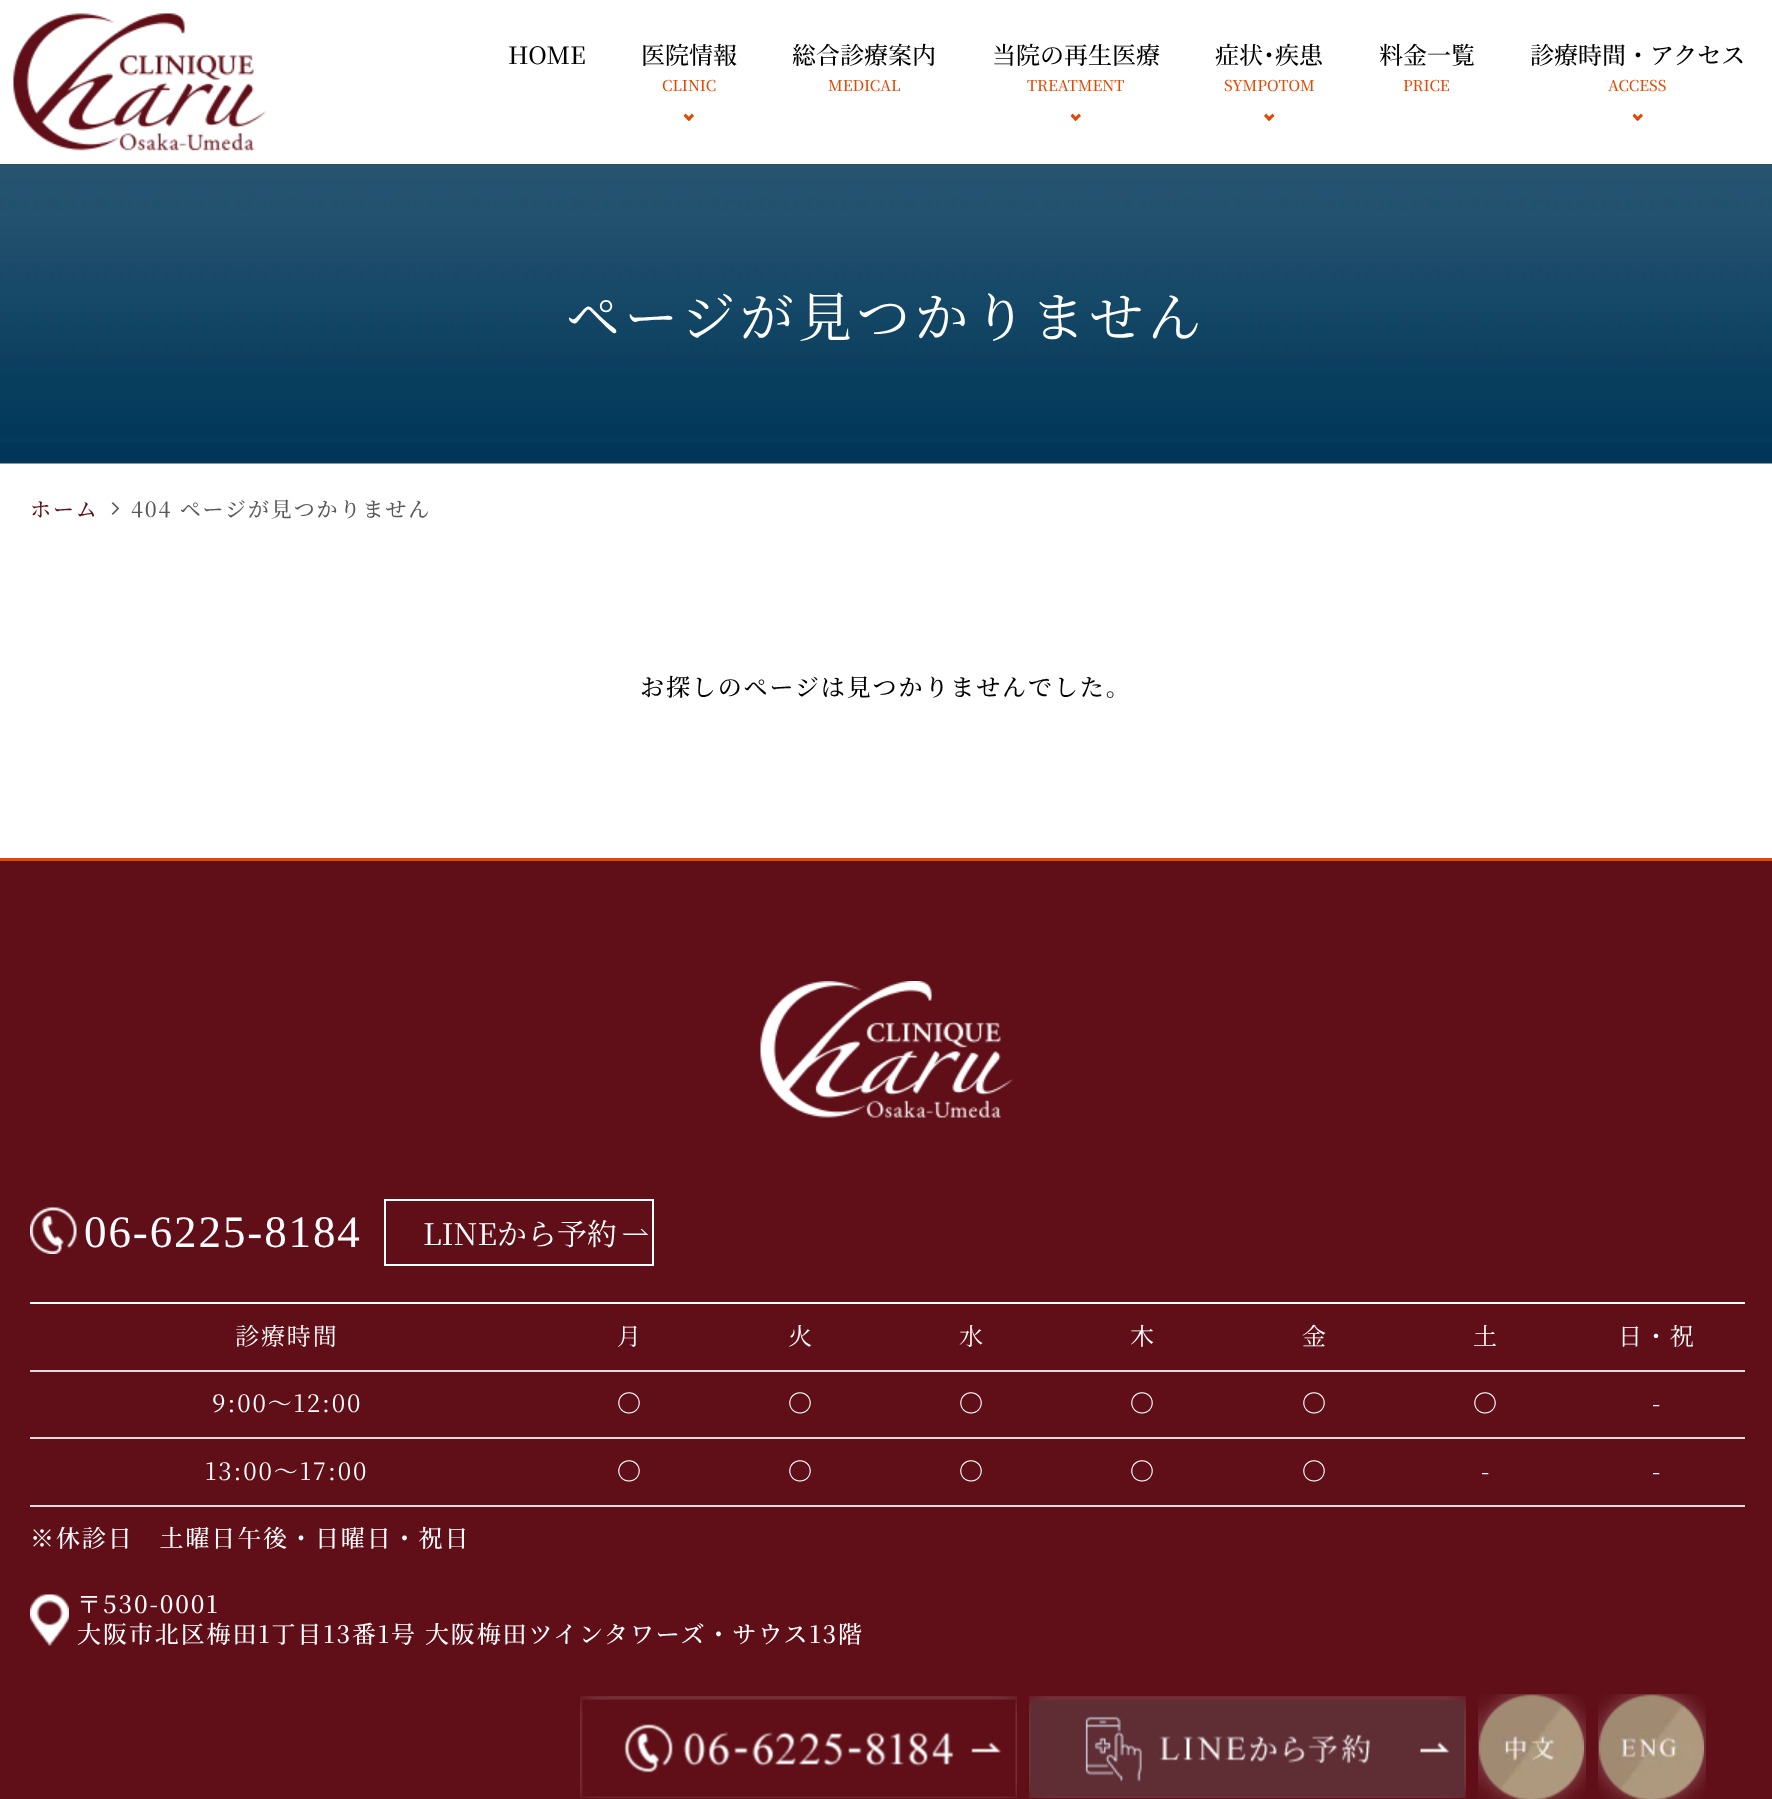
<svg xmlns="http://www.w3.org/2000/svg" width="1772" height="1799">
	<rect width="100%" height="100%" fill="#FFFFFF" />
	<image x="13" y="13" width="253" height="138" href="assets/img1.png" />
	<g font-family="Noto Serif JP" font-size="24" font-weight="500" fill="#000000">
		<text x="508" y="64">HOME</text>
		<text x="641" y="64">医院情報</text>
	</g>
	<text x="662" y="91" font-family="Noto Serif JP" font-size="15" font-weight="500" fill="#E44700">CLINIC</text>
	<path d="M692 113.5L694 116L689 121L686.5 119Z" fill="#E44700" />
	<path d="M685.5 113.5L691 119L689 121L683.5 116Z" fill="#E44700" />
	<text x="792" y="64" font-family="Noto Serif JP" font-size="24" font-weight="500" fill="#000000">総合診療案内</text>
	<text x="828" y="91" font-family="Noto Serif JP" font-size="15" font-weight="500" fill="#E44700">MEDICAL</text>
	<text x="992" y="64" font-family="Noto Serif JP" font-size="24" font-weight="500" fill="#000000">当院の再生医療</text>
	<text x="1027" y="91" font-family="Noto Serif JP" font-size="15" font-weight="500" fill="#E44700">TREATMENT</text>
	<path d="M1079 113.5L1081 116L1075.5 121L1073.5 119Z" fill="#E44700" />
	<path d="M1072.5 113.5L1078 119L1075.5 121L1070.5 116Z" fill="#E44700" />
	<text x="1215" y="64" font-family="Noto Serif JP" font-size="24" font-weight="500" fill="#000000">症状･疾患</text>
	<text x="1224" y="91" font-family="Noto Serif JP" font-size="15" font-weight="500" fill="#E44700">SYMPOTOM</text>
	<path d="M1272.5 113.5L1274.5 116L1269 121L1267 119Z" fill="#E44700" />
	<path d="M1266 113.5L1271.5 119L1269 121L1264 116Z" fill="#E44700" />
	<text x="1379" y="64" font-family="Noto Serif JP" font-size="24" font-weight="500" fill="#000000">料金一覧</text>
	<text x="1403" y="91" font-family="Noto Serif JP" font-size="15" font-weight="500" fill="#E44700">PRICE</text>
	<text x="1530" y="64" font-family="Noto Serif JP" font-size="24" font-weight="500" fill="#000000">診療時間・アクセス</text>
	<text x="1608" y="91" font-family="Noto Serif JP" font-size="15" font-weight="500" fill="#E44700">ACCESS</text>
	<path d="M1641 113.5L1643 116L1637.5 121L1635.5 119Z" fill="#E44700" />
	<path d="M1634.5 113.5L1640 119L1637.5 121L1632.5 116Z" fill="#E44700" />
	<image x="0" y="164" width="1772" height="300" href="assets/img2.png" />
	<text x="566" y="337" font-family="Noto Serif JP" font-size="54" letter-spacing="4.25" fill="#FFFFFF">ページが見つかりません</text>
	<text x="30" y="517" font-family="Noto Serif JP" font-size="21" font-weight="500" letter-spacing="1.9" fill="#600F18">ホーム</text>
	<image x="111" y="502" width="9" height="13" href="assets/img3.png" />
	<text x="131" y="517" font-family="Noto Serif JP" font-size="21" font-weight="500" letter-spacing="1.9" fill="#595959">404 ページが見つかりません</text>
	<text x="640" y="696" font-family="Noto Serif JP" font-size="24" font-weight="500" letter-spacing="1.9" fill="#000000">お探しのページは見つかりませんでした。</text>
	<rect x="0" y="858" width="1772" height="3" fill="#E44700" />
	<rect x="0" y="861" width="1772" height="938" fill="#600F18" />
	<image x="760" y="981" width="253" height="137" href="assets/img4.png" />
	<image x="30" y="1207" width="47" height="47" href="assets/img5.png" />
	<text x="84" y="1247" font-family="Liberation Serif" font-size="45" letter-spacing="1.9" fill="#FFFFFF">06-6225-8184</text>
	<rect x="385" y="1200" width="268" height="65" fill="none" stroke="#FFFFFF" stroke-width="2" />
	<text x="423" y="1245" font-family="Noto Serif JP" font-size="30" fill="#FFFFFF">LINEから予約</text>
	<path d="M640.5 1229H642L648 1235H646.5Z" fill="#FFFFFF" />
	<path d="M622.5 1233.5H646.5L648 1235H624Z" fill="#FFFFFF" />
	<g font-family="Noto Serif JP" font-size="24" letter-spacing="1.9" fill="#FFFFFF">
		<text x="235" y="1345">診療時間</text>
		<text x="617" y="1345">月</text>
		<text x="788" y="1345">火</text>
		<text x="959" y="1345">水</text>
		<text x="1130" y="1345">木</text>
		<text x="1302" y="1345">金</text>
		<text x="1473" y="1345">土</text>
	</g>
	<rect x="30" y="1302" width="1715" height="2" fill="#FFFFFF" />
	<rect x="30" y="1370" width="1715" height="2" fill="#DDDDDD" />
	<g font-family="Noto Serif JP" font-size="24" letter-spacing="1.9" fill="#FFFFFF">
		<text x="1618" y="1345">日・祝</text>
		<text x="212" y="1412">9:00～12:00</text>
		<text x="617" y="1412">〇</text>
		<text x="788" y="1412">〇</text>
		<text x="959" y="1412">〇</text>
		<text x="1130" y="1412">〇</text>
		<text x="1302" y="1412">〇</text>
		<text x="1473" y="1412">〇</text>
	</g>
	<rect x="30" y="1437" width="1715" height="2" fill="#DDDDDD" />
	<g font-family="Noto Serif JP" font-size="24" letter-spacing="1.9" fill="#FFFFFF">
		<text x="1652" y="1412">-</text>
		<text x="205" y="1480">13:00～17:00</text>
		<text x="617" y="1480">〇</text>
		<text x="788" y="1480">〇</text>
		<text x="959" y="1480">〇</text>
		<text x="1130" y="1480">〇</text>
		<text x="1302" y="1480">〇</text>
		<text x="1481" y="1480">-</text>
	</g>
	<rect x="30" y="1505" width="1715" height="2" fill="#DDDDDD" />
	<text x="1652" y="1480" font-family="Noto Serif JP" font-size="24" letter-spacing="1.9" fill="#FFFFFF">-</text>
	<text x="30" y="1547" font-family="Noto Serif JP" font-size="24" font-weight="500" letter-spacing="1.9" fill="#FFFFFF">※休診日　土曜日午後・日曜日・祝日</text>
	<image x="30" y="1594" width="39" height="52" href="assets/img6.png" />
	<g font-family="Noto Serif JP" font-size="24" font-weight="500" letter-spacing="1.9" fill="#FFFFFF">
		<text x="77" y="1613">〒530-0001</text>
		<text x="77" y="1643">大阪市北区梅田1丁目13番1号 大阪梅田ツインタワーズ・サウス13階</text>
	</g>
	<image x="580" y="1696" width="437" height="102" href="assets/img7.png" />
	<image x="1029" y="1696" width="437" height="102" href="assets/img8.png" />
	<image x="1478" y="1694" width="108" height="105" href="assets/img9.png" />
	<image x="1598" y="1694" width="108" height="105" href="assets/img10.png" />
</svg>
